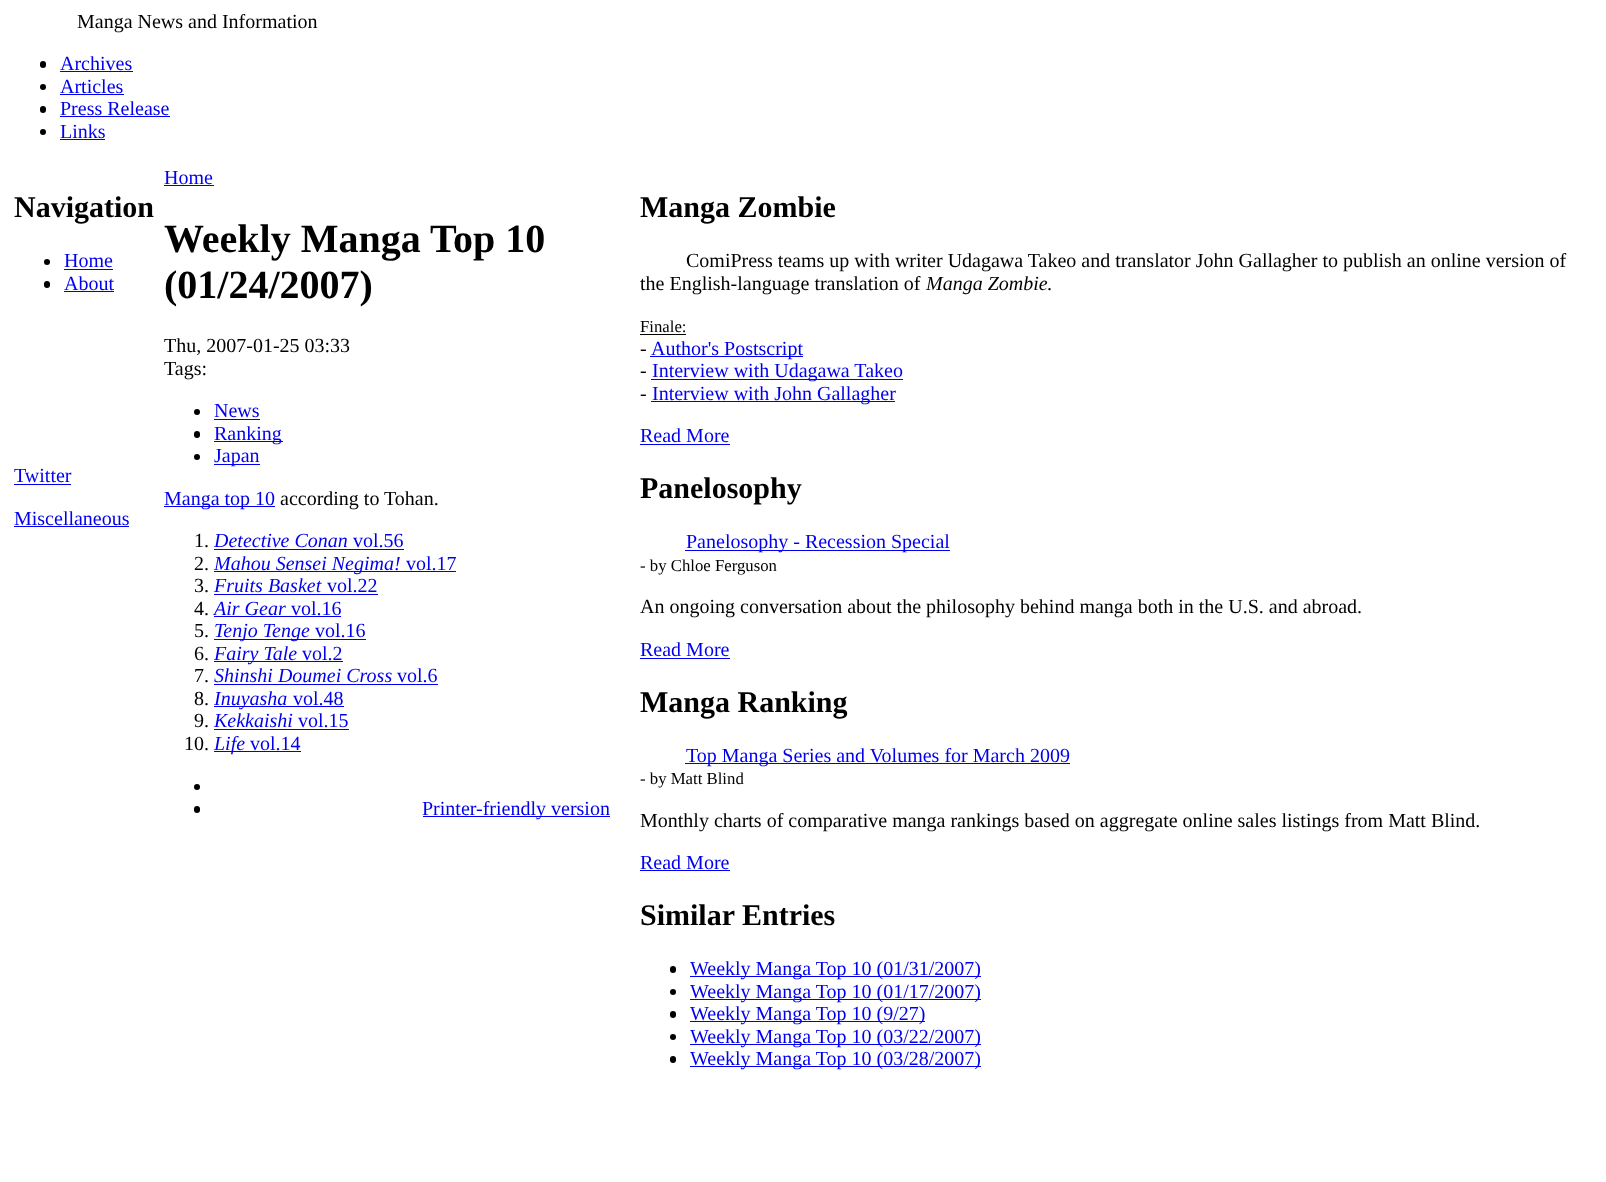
<svg xmlns="http://www.w3.org/2000/svg" width="1606" height="1182">
	<rect width="100%" height="100%" fill="#FFFFFF" />
	<text x="77" y="28" font-family="Liberation Serif" font-size="20" fill="#000000">Manga News and Information</text>
	<rect x="40" y="61" width="6" height="7" rx="3" fill="#000000" />
	<text x="60" y="70" font-family="Liberation Serif" font-size="20" fill="#0000EE">Archives</text>
	<rect x="60" y="71" width="73" height="1" fill="#0000EE" />
	<circle cx="43" cy="87" r="3" fill="#000000" />
	<text x="60" y="93" font-family="Liberation Serif" font-size="20" fill="#0000EE">Articles</text>
	<rect x="60" y="94" width="64" height="1" fill="#0000EE" />
	<rect x="40" y="106" width="6" height="7" rx="3" fill="#000000" />
	<text x="60" y="115" font-family="Liberation Serif" font-size="20" fill="#0000EE">Press Release</text>
	<rect x="60" y="116" width="110" height="1" fill="#0000EE" />
	<circle cx="43" cy="132" r="3" fill="#000000" />
	<text x="60" y="138" font-family="Liberation Serif" font-size="20" fill="#0000EE">Links</text>
	<rect x="60" y="139" width="45" height="1" fill="#0000EE" />
	<text x="14" y="217" font-family="Liberation Serif" font-size="30" font-weight="700" fill="#000000">Navigation</text>
	<circle cx="47" cy="262" r="3" fill="#000000" />
	<text x="64" y="267" font-family="Liberation Serif" font-size="20" fill="#0000EE">Home</text>
	<rect x="64" y="269" width="49" height="1" fill="#0000EE" />
	<rect x="44" y="281" width="6" height="7" rx="3" fill="#000000" />
	<text x="64" y="290" font-family="Liberation Serif" font-size="20" fill="#0000EE">About</text>
	<rect x="64" y="291" width="50" height="1" fill="#0000EE" />
	<text x="14" y="482" font-family="Liberation Serif" font-size="20" fill="#0000EE">Twitter</text>
	<rect x="14" y="484" width="57" height="1" fill="#0000EE" />
	<text x="14" y="525" font-family="Liberation Serif" font-size="20" fill="#0000EE">Miscellaneous</text>
	<rect x="14" y="526" width="115" height="1" fill="#0000EE" />
	<text x="164" y="184" font-family="Liberation Serif" font-size="20" fill="#0000EE">Home</text>
	<rect x="164" y="185" width="50" height="1" fill="#0000EE" />
	<g font-family="Liberation Serif" font-size="40" font-weight="700" fill="#000000">
		<text x="164" y="252">Weekly Manga Top 10</text>
		<text x="164" y="298">(01/24/2007)</text>
	</g>
	<g font-family="Liberation Serif" font-size="20" fill="#000000">
		<text x="164" y="352">Thu, 2007-01-25 03:33</text>
		<text x="164" y="375">Tags:</text>
	</g>
	<circle cx="197" cy="412" r="3" fill="#000000" />
	<text x="214" y="417" font-family="Liberation Serif" font-size="20" fill="#0000EE">News</text>
	<rect x="214" y="419" width="46" height="1" fill="#0000EE" />
	<rect x="194" y="431" width="6" height="7" rx="3" fill="#000000" />
	<rect x="214" y="441" width="69" height="1" fill="#0000EE" />
	<text x="214" y="440" font-family="Liberation Serif" font-size="20" fill="#0000EE">Ranking</text>
	<circle cx="197" cy="457" r="3" fill="#000000" />
	<rect x="214" y="464" width="46" height="1" fill="#0000EE" />
	<text x="214" y="462" font-family="Liberation Serif" font-size="20" fill="#0000EE">Japan</text>
	<rect x="164" y="506" width="111" height="1" fill="#0000EE" />
	<text x="164" y="505" font-family="Liberation Serif" font-size="20" fill="#0000EE">Manga top 10</text>
	<g font-family="Liberation Serif" font-size="20" fill="#000000">
		<text x="280" y="505">according to Tohan.</text>
		<text x="194" y="547">1.</text>
	</g>
	<text x="214" y="547" font-family="Liberation Serif" font-size="20" font-style="italic" fill="#0000EE">Detective Conan</text>
	<rect x="214" y="549" width="190" height="1" fill="#0000EE" />
	<text x="353" y="547" font-family="Liberation Serif" font-size="20" fill="#0000EE">vol.56</text>
	<text x="194" y="570" font-family="Liberation Serif" font-size="20" fill="#000000">2.</text>
	<rect x="214" y="571" width="242" height="1" fill="#0000EE" />
	<text x="214" y="570" font-family="Liberation Serif" font-size="20" font-style="italic" fill="#0000EE">Mahou Sensei Negima!</text>
	<text x="406" y="570" font-family="Liberation Serif" font-size="20" fill="#0000EE">vol.17</text>
	<text x="194" y="592" font-family="Liberation Serif" font-size="20" fill="#000000">3.</text>
	<text x="214" y="592" font-family="Liberation Serif" font-size="20" font-style="italic" fill="#0000EE">Fruits Basket</text>
	<rect x="214" y="594" width="164" height="1" fill="#0000EE" />
	<text x="327" y="592" font-family="Liberation Serif" font-size="20" fill="#0000EE">vol.22</text>
	<text x="194" y="615" font-family="Liberation Serif" font-size="20" fill="#000000">4.</text>
	<text x="214" y="615" font-family="Liberation Serif" font-size="20" font-style="italic" fill="#0000EE">Air Gear</text>
	<rect x="214" y="616" width="127" height="1" fill="#0000EE" />
	<text x="291" y="615" font-family="Liberation Serif" font-size="20" fill="#0000EE">vol.16</text>
	<text x="194" y="637" font-family="Liberation Serif" font-size="20" fill="#000000">5.</text>
	<rect x="214" y="639" width="152" height="1" fill="#0000EE" />
	<text x="214" y="637" font-family="Liberation Serif" font-size="20" font-style="italic" fill="#0000EE">Tenjo Tenge</text>
	<text x="315" y="637" font-family="Liberation Serif" font-size="20" fill="#0000EE">vol.16</text>
	<text x="194" y="660" font-family="Liberation Serif" font-size="20" fill="#000000">6.</text>
	<rect x="214" y="661" width="129" height="1" fill="#0000EE" />
	<text x="214" y="660" font-family="Liberation Serif" font-size="20" font-style="italic" fill="#0000EE">Fairy Tale</text>
	<text x="302" y="660" font-family="Liberation Serif" font-size="20" fill="#0000EE">vol.2</text>
	<text x="194" y="682" font-family="Liberation Serif" font-size="20" fill="#000000">7.</text>
	<text x="214" y="682" font-family="Liberation Serif" font-size="20" font-style="italic" fill="#0000EE">Shinshi Doumei Cross</text>
	<rect x="214" y="684" width="224" height="1" fill="#0000EE" />
	<text x="397" y="682" font-family="Liberation Serif" font-size="20" fill="#0000EE">vol.6</text>
	<text x="194" y="705" font-family="Liberation Serif" font-size="20" fill="#000000">8.</text>
	<rect x="214" y="706" width="130" height="1" fill="#0000EE" />
	<text x="214" y="705" font-family="Liberation Serif" font-size="20" font-style="italic" fill="#0000EE">Inuyasha</text>
	<text x="293" y="705" font-family="Liberation Serif" font-size="20" fill="#0000EE">vol.48</text>
	<text x="194" y="727" font-family="Liberation Serif" font-size="20" fill="#000000">9.</text>
	<text x="214" y="727" font-family="Liberation Serif" font-size="20" font-style="italic" fill="#0000EE">Kekkaishi</text>
	<rect x="214" y="729" width="135" height="1" fill="#0000EE" />
	<text x="298" y="727" font-family="Liberation Serif" font-size="20" fill="#0000EE">vol.15</text>
	<text x="184" y="750" font-family="Liberation Serif" font-size="20" fill="#000000">10.</text>
	<rect x="214" y="751" width="87" height="1" fill="#0000EE" />
	<text x="214" y="750" font-family="Liberation Serif" font-size="20" font-style="italic" fill="#0000EE">Life</text>
	<text x="250" y="750" font-family="Liberation Serif" font-size="20" fill="#0000EE">vol.14</text>
	<circle cx="197" cy="787" r="3" fill="#000000" />
	<rect x="194" y="806" width="6" height="7" rx="3" fill="#000000" />
	<rect x="423" y="816" width="187" height="1" fill="#0000EE" />
	<text x="422" y="815" font-family="Liberation Serif" font-size="20" fill="#0000EE">Printer-friendly version</text>
	<text x="640" y="217" font-family="Liberation Serif" font-size="30" font-weight="700" fill="#000000">Manga Zombie</text>
	<g font-family="Liberation Serif" font-size="20" fill="#000000">
		<text x="686" y="267">ComiPress teams up with writer Udagawa Takeo and translator John Gallagher to publish an online version of</text>
		<text x="640" y="290">the English-language translation of</text>
	</g>
	<text x="926" y="290" font-family="Liberation Serif" font-size="20" font-style="italic" fill="#000000">Manga Zombie</text>
	<text x="1047" y="290" font-family="Liberation Serif" font-size="20" fill="#000000">.</text>
	<text x="640" y="332" font-family="Liberation Serif" font-size="16.75" fill="#000000">Finale:</text>
	<rect x="640" y="334" width="46" height="1" fill="#000000" />
	<text x="640" y="355" font-family="Liberation Serif" font-size="20" fill="#000000">-</text>
	<rect x="650" y="356" width="153" height="1" fill="#0000EE" />
	<text x="651" y="355" font-family="Liberation Serif" font-size="20" fill="#0000EE">Author's Postscript</text>
	<text x="640" y="377" font-family="Liberation Serif" font-size="20" fill="#000000">-</text>
	<rect x="651" y="379" width="252" height="1" fill="#0000EE" />
	<text x="652" y="377" font-family="Liberation Serif" font-size="20" fill="#0000EE">Interview with Udagawa Takeo</text>
	<text x="640" y="400" font-family="Liberation Serif" font-size="20" fill="#000000">-</text>
	<rect x="651" y="401" width="244" height="1" fill="#0000EE" />
	<g font-family="Liberation Serif" font-size="20" fill="#0000EE">
		<text x="652" y="400">Interview with John Gallagher</text>
		<text x="640" y="442">Read More</text>
	</g>
	<rect x="640" y="444" width="90" height="1" fill="#0000EE" />
	<text x="640" y="498" font-family="Liberation Serif" font-size="30" font-weight="700" fill="#000000">Panelosophy</text>
	<rect x="685" y="550" width="265" height="1" fill="#0000EE" />
	<text x="686" y="548" font-family="Liberation Serif" font-size="20" fill="#0000EE">Panelosophy - Recession Special</text>
	<text x="640" y="571" font-family="Liberation Serif" font-size="16.75" fill="#000000">- by Chloe Ferguson</text>
	<text x="640" y="613" font-family="Liberation Serif" font-size="20" fill="#000000">An ongoing conversation about the philosophy behind manga both in the U.S. and abroad.</text>
	<text x="640" y="656" font-family="Liberation Serif" font-size="20" fill="#0000EE">Read More</text>
	<rect x="640" y="658" width="90" height="1" fill="#0000EE" />
	<text x="640" y="712" font-family="Liberation Serif" font-size="30" font-weight="700" fill="#000000">Manga Ranking</text>
	<rect x="685" y="763" width="385" height="1" fill="#0000EE" />
	<text x="686" y="762" font-family="Liberation Serif" font-size="20" fill="#0000EE">Top Manga Series and Volumes for March 2009</text>
	<text x="640" y="784" font-family="Liberation Serif" font-size="16.75" fill="#000000">- by Matt Blind</text>
	<text x="640" y="827" font-family="Liberation Serif" font-size="20" fill="#000000">Monthly charts of comparative manga rankings based on aggregate online sales listings from Matt Blind.</text>
	<text x="640" y="869" font-family="Liberation Serif" font-size="20" fill="#0000EE">Read More</text>
	<rect x="640" y="870" width="90" height="1" fill="#0000EE" />
	<text x="640" y="925" font-family="Liberation Serif" font-size="30" font-weight="700" fill="#000000">Similar Entries</text>
	<rect x="670" y="966" width="6" height="7" rx="3" fill="#000000" />
	<rect x="690" y="976" width="291" height="1" fill="#0000EE" />
	<text x="690" y="975" font-family="Liberation Serif" font-size="20" fill="#0000EE">Weekly Manga Top 10 (01/31/2007)</text>
	<circle cx="673" cy="992" r="3" fill="#000000" />
	<rect x="690" y="999" width="291" height="1" fill="#0000EE" />
	<text x="690" y="998" font-family="Liberation Serif" font-size="20" fill="#0000EE">Weekly Manga Top 10 (01/17/2007)</text>
	<rect x="670" y="1011" width="6" height="7" rx="3" fill="#000000" />
	<rect x="690" y="1021" width="235" height="1" fill="#0000EE" />
	<text x="690" y="1020" font-family="Liberation Serif" font-size="20" fill="#0000EE">Weekly Manga Top 10 (9/27)</text>
	<circle cx="673" cy="1037" r="3" fill="#000000" />
	<rect x="690" y="1044" width="291" height="1" fill="#0000EE" />
	<text x="690" y="1043" font-family="Liberation Serif" font-size="20" fill="#0000EE">Weekly Manga Top 10 (03/22/2007)</text>
	<rect x="670" y="1056" width="6" height="7" rx="3" fill="#000000" />
	<rect x="690" y="1066" width="291" height="1" fill="#0000EE" />
	<text x="690" y="1065" font-family="Liberation Serif" font-size="20" fill="#0000EE">Weekly Manga Top 10 (03/28/2007)</text>
</svg>
